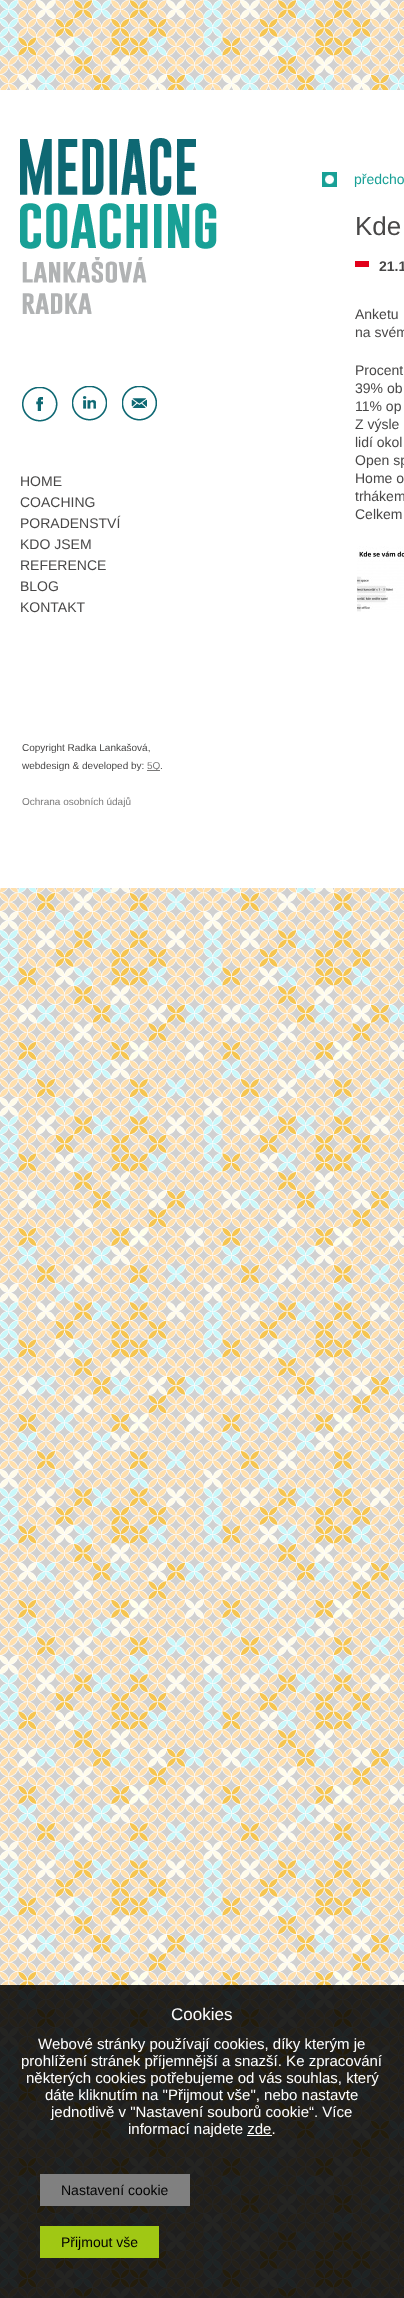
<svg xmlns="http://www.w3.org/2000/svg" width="404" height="2298">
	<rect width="100%" height="100%" fill="#FFFFFF" />
	<image x="0" y="0" width="404" height="2298" href="assets/img1.png" />
	<rect x="0" y="90" width="404" height="798" fill="#FFFFFF" />
	<image x="322" y="172" width="15" height="15" href="assets/img2.png" />
	<text x="354" y="184" font-family="Liberation Sans" font-size="14" fill="#18A096">předcho</text>
	<text x="355" y="235" font-family="Liberation Sans" font-size="26" fill="#484747">Kde</text>
	<rect x="355" y="261" width="14" height="6" fill="#E2001A" />
	<text x="379" y="271" font-family="Liberation Sans" font-size="14" font-weight="700" fill="#484747">21.1</text>
	<g font-family="Liberation Sans" font-size="14" fill="#484747">
		<text x="355" y="319">Anketu</text>
		<text x="355" y="337">na svém</text>
		<text x="355" y="375">Procent</text>
		<text x="355" y="393">39% ob</text>
		<text x="355" y="411">11% op</text>
		<text x="355" y="429">Z výsle</text>
		<text x="355" y="447">lidí okol</text>
		<text x="355" y="465">Open sp</text>
		<text x="355" y="483">Home o</text>
		<text x="355" y="501">trhákem</text>
		<text x="355" y="519">Celkem</text>
	</g>
	<image x="357" y="546" width="47" height="66" href="assets/img3.png" />
	<image x="20" y="138" width="197" height="176" href="assets/img4.png" />
	<image x="22" y="387" width="36" height="35" href="assets/img5.png" />
	<image x="72" y="386" width="35" height="35" href="assets/img6.png" />
	<image x="122" y="386" width="35" height="35" href="assets/img7.png" />
	<g font-family="Liberation Sans" font-size="14" fill="#484747">
		<text x="20" y="486">HOME</text>
		<text x="20" y="507">COACHING</text>
		<text x="20" y="528">PORADENSTVÍ</text>
		<text x="20" y="549">KDO JSEM</text>
		<text x="20" y="570">REFERENCE</text>
		<text x="20" y="591">BLOG</text>
		<text x="20" y="612">KONTAKT</text>
	</g>
	<g font-family="Liberation Sans" font-size="10" fill="#484747">
		<text x="22" y="751">Copyright Radka Lankašová,</text>
		<text x="22" y="769">webdesign &amp; developed by:</text>
	</g>
	<rect x="147" y="770" width="13" height="1" fill="#7B7A7A" />
	<text x="147" y="769" font-family="Liberation Sans" font-size="10" fill="#7B7A7A">5Q</text>
	<text x="160" y="769" font-family="Liberation Sans" font-size="10" fill="#484747">.</text>
	<text x="22" y="805" font-family="Liberation Sans" font-size="10" fill="#7B7A7A">Ochrana osobních údajů</text>
	<rect x="0" y="1985" width="404" height="313" fill="#000000" fill-opacity="0.86" />
	<text x="171" y="2020" font-family="Liberation Sans" font-size="17" fill="#FFFFFF">Cookies</text>
	<g font-family="Liberation Sans" font-size="15" fill="#FFFFFF">
		<text x="38" y="2049">Webové stránky používají cookies, díky kterým je</text>
		<text x="21" y="2066">prohlížení stránek příjemnější a snazší. Ke zpracování</text>
		<text x="26" y="2083">některých cookies potřebujeme od vás souhlas, který</text>
		<text x="45" y="2100">dáte kliknutím na "Přijmout vše", nebo nastavte</text>
		<text x="51" y="2117">jednotlivě v "Nastavení souborů cookie“. Více</text>
		<text x="128" y="2134">informací najdete zde.</text>
	</g>
	<rect x="247" y="2135" width="25" height="1" fill="#FFFFFF" />
	<rect x="40" y="2174" width="150" height="32" fill="#808080" />
	<text x="61" y="2195" font-family="Liberation Sans" font-size="14" fill="#000000">Nastavení cookie</text>
	<rect x="40" y="2226" width="119" height="32" fill="#A0C814" />
	<text x="61" y="2247" font-family="Liberation Sans" font-size="14" fill="#000000">Přijmout vše</text>
</svg>
